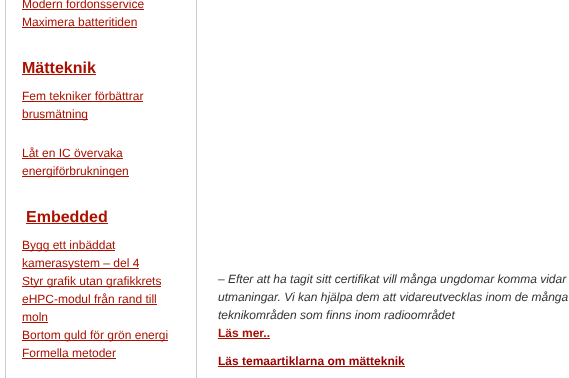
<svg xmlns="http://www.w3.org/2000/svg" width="569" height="378">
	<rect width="100%" height="100%" fill="#FFFFFF" />
	<rect x="5.5" y="-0.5" width="191" height="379" fill="none" stroke="#CCCCCC" />
	<text x="22" y="8" font-family="Liberation Sans" font-size="12" fill="#AA1100">Modern fordonsservice</text>
	<rect x="22" y="9" width="122" height="1" fill="#AA1100" />
	<text x="22" y="26" font-family="Liberation Sans" font-size="12" fill="#AA1100">Maximera batteritiden</text>
	<rect x="22" y="27" width="115" height="1" fill="#AA1100" />
	<text x="22" y="73" font-family="Liberation Sans" font-size="16" font-weight="700" fill="#AA1100">Mätteknik</text>
	<rect x="22" y="74" width="74" height="1" fill="#AA1100" />
	<text x="22" y="100" font-family="Liberation Sans" font-size="12" fill="#AA1100">Fem tekniker förbättrar</text>
	<rect x="22" y="101" width="121" height="1" fill="#AA1100" />
	<rect x="22" y="119" width="66" height="1" fill="#AA1100" />
	<g font-family="Liberation Sans" font-size="12" fill="#AA1100">
		<text x="22" y="118">brusmätning</text>
		<text x="22" y="157">Låt en IC övervaka</text>
	</g>
	<rect x="22" y="158" width="101" height="1" fill="#AA1100" />
	<rect x="22" y="176" width="107" height="1" fill="#AA1100" />
	<text x="22" y="175" font-family="Liberation Sans" font-size="12" fill="#AA1100">energiförbrukningen</text>
	<text x="26" y="222" font-family="Liberation Sans" font-size="16" font-weight="700" fill="#AA1100">Embedded</text>
	<rect x="26" y="223" width="82" height="1" fill="#AA1100" />
	<rect x="22" y="250" width="93" height="1" fill="#AA1100" />
	<text x="22" y="249" font-family="Liberation Sans" font-size="12" fill="#AA1100">Bygg ett inbäddat</text>
	<rect x="22" y="268" width="117" height="1" fill="#AA1100" />
	<text x="22" y="267" font-family="Liberation Sans" font-size="12" fill="#AA1100">kamerasystem – del 4</text>
	<rect x="22" y="286" width="139" height="1" fill="#AA1100" />
	<g font-family="Liberation Sans" font-size="12" fill="#AA1100">
		<text x="22" y="285">Styr grafik utan grafikkrets</text>
		<text x="22" y="303">eHPC-modul från rand till</text>
	</g>
	<rect x="22" y="304" width="135" height="1" fill="#AA1100" />
	<text x="22" y="321" font-family="Liberation Sans" font-size="12" fill="#AA1100">moln</text>
	<rect x="22" y="322" width="26" height="1" fill="#AA1100" />
	<rect x="22" y="340" width="146" height="1" fill="#AA1100" />
	<g font-family="Liberation Sans" font-size="12" fill="#AA1100">
		<text x="22" y="339">Bortom guld för grön energi</text>
		<text x="22" y="357">Formella metoder</text>
	</g>
	<rect x="22" y="358" width="94" height="1" fill="#AA1100" />
	<g font-family="Liberation Sans" font-size="12" font-style="italic" fill="#333333">
		<text x="218" y="283">– Efter att ha tagit sitt certifikat vill många ungdomar komma vidar</text>
		<text x="218" y="301">utmaningar. Vi kan hjälpa dem att vidareutvecklas inom de många</text>
		<text x="218" y="319">teknikområden som finns inom radioområdet</text>
	</g>
	<text x="218" y="337" font-family="Liberation Sans" font-size="12" font-weight="700" fill="#AA1100">Läs mer..</text>
	<rect x="218" y="338" width="52" height="1" fill="#AA1100" />
	<text x="218" y="365" font-family="Liberation Sans" font-size="12" font-weight="700" fill="#990000">Läs temaartiklarna om mätteknik</text>
	<rect x="218" y="366" width="187" height="1" fill="#AA1100" />
</svg>
